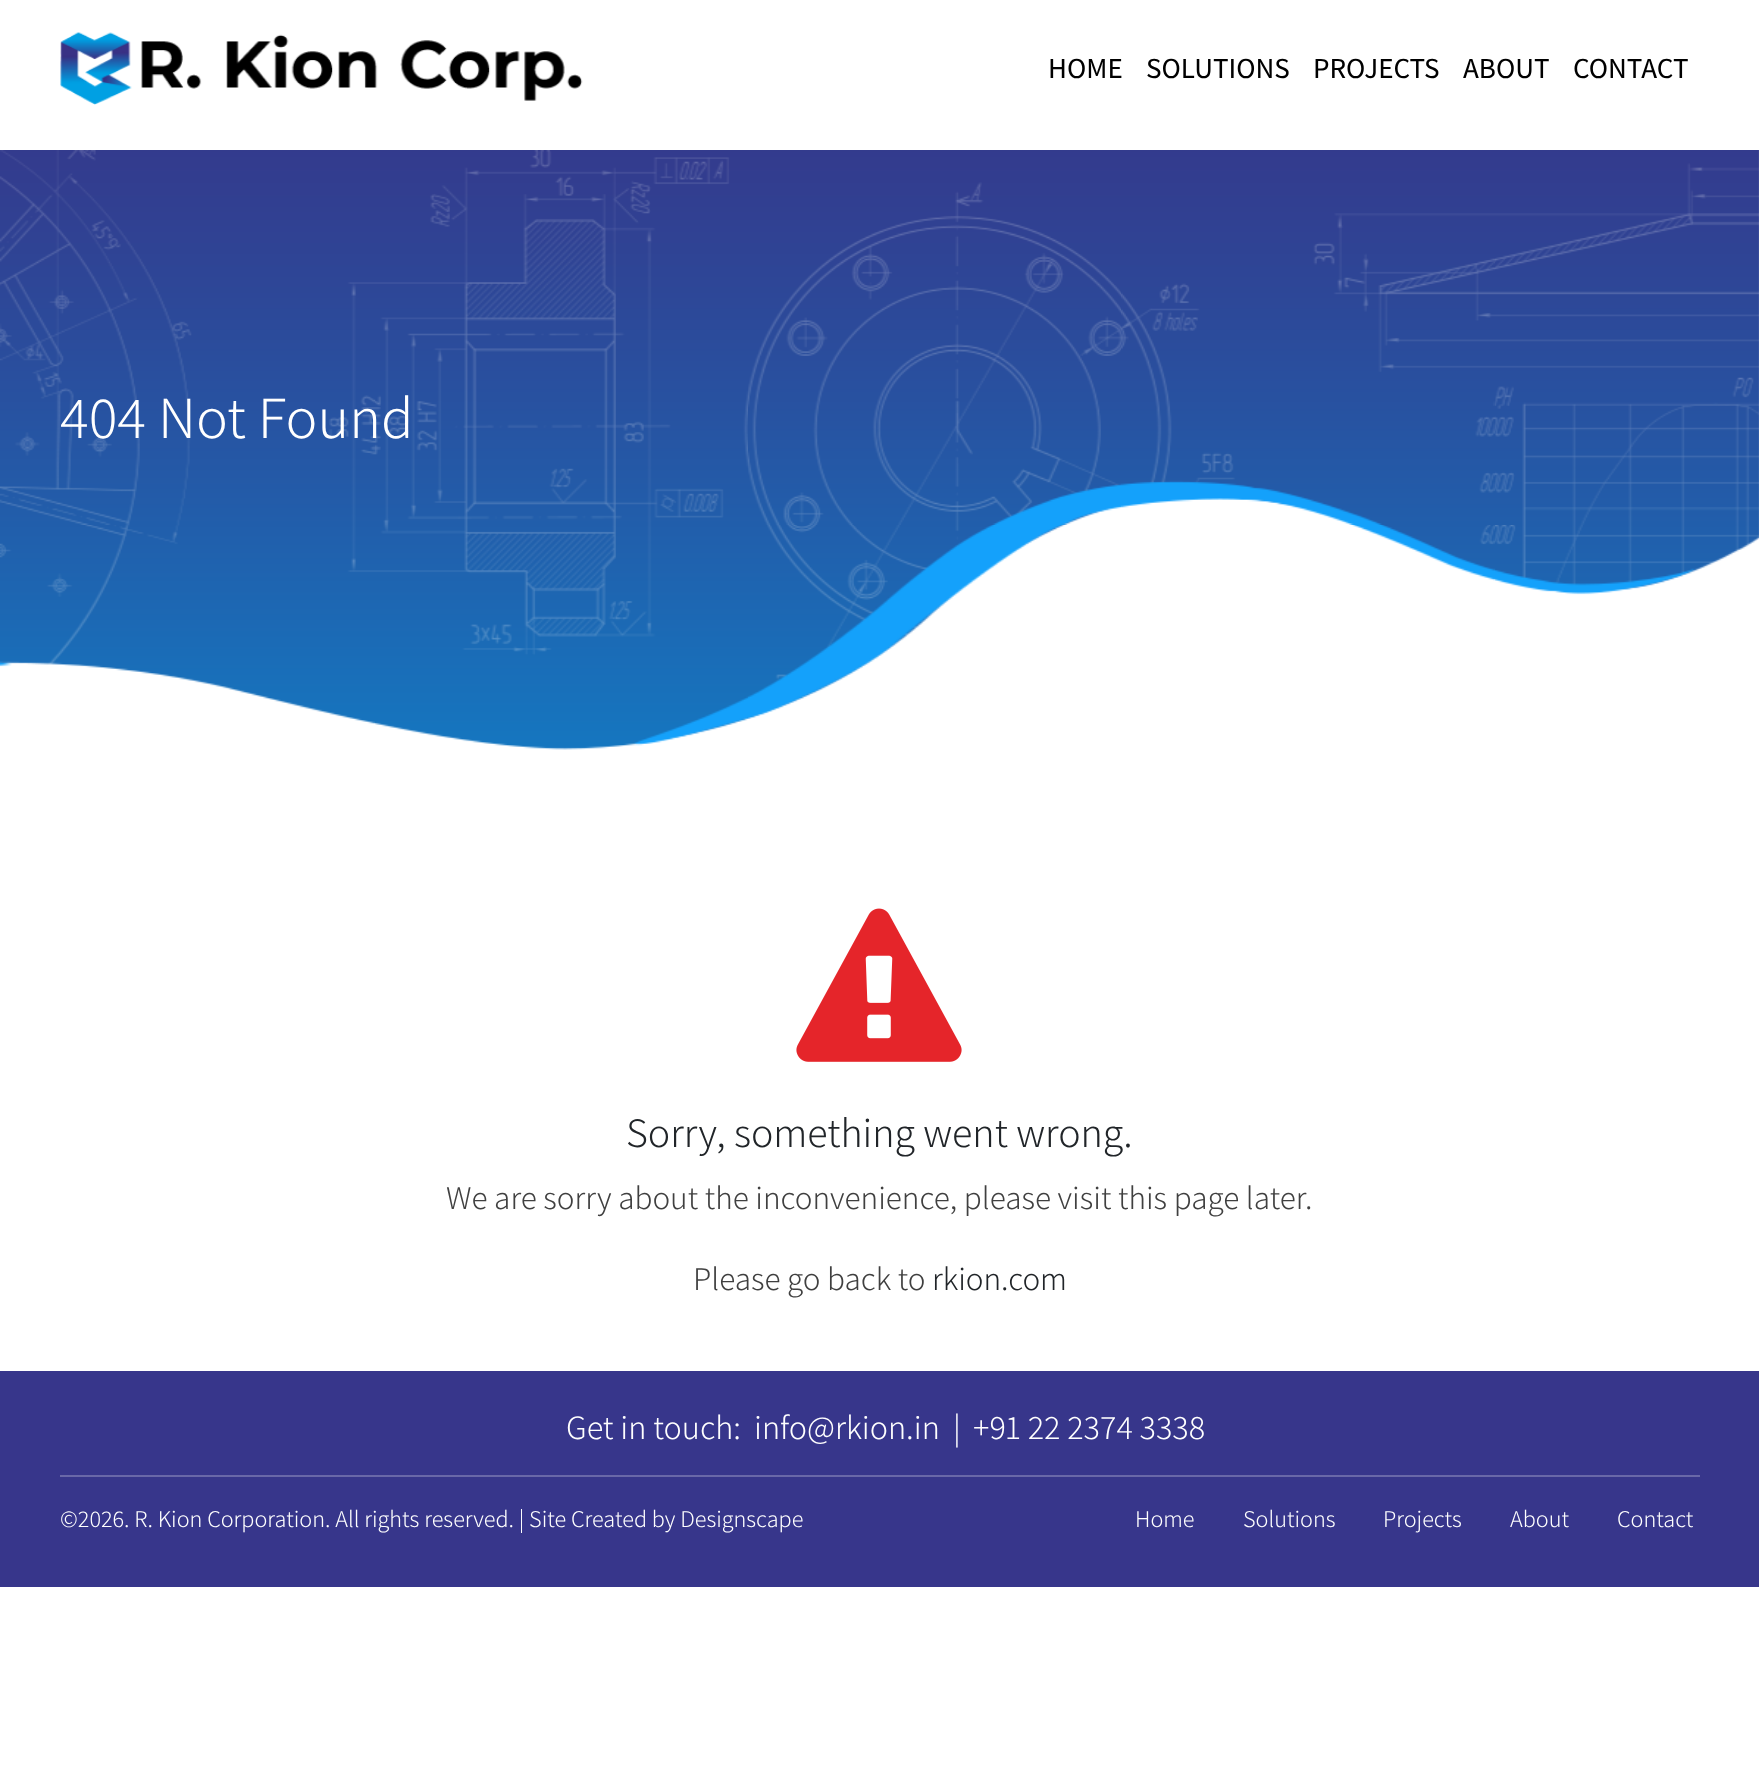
<svg xmlns="http://www.w3.org/2000/svg" width="1759" height="1788">
	<rect width="100%" height="100%" fill="#FFFFFF" />
	<image x="60" y="32" width="523" height="73" href="assets/img1.png" />
	<g font-family="Assistant" font-size="29" font-weight="500" fill="#000000">
		<text x="1048" y="78">HOME</text>
		<text x="1146" y="78">SOLUTIONS</text>
		<text x="1313" y="78">PROJECTS</text>
		<text x="1463" y="78">ABOUT</text>
		<text x="1573" y="78">CONTACT</text>
	</g>
	<image x="0" y="150" width="1759" height="600" href="assets/img2.png" />
	<text x="60" y="438" font-family="Assistant" font-size="59.5" font-weight="300" fill="#FFFFFF">404 Not Found</text>
	<image x="796" y="908" width="166" height="154" href="assets/img3.png" />
	<text x="626" y="1147" font-family="Assistant" font-size="41.75" font-weight="300" fill="#212529">Sorry, something went wrong.</text>
	<g font-family="Assistant" font-size="33" font-weight="300" fill="#404040">
		<text x="446" y="1209">We are sorry about the inconvenience, please visit this page later.</text>
		<text x="693" y="1290">Please go back to</text>
	</g>
	<text x="932" y="1290" font-family="Assistant" font-size="33" font-weight="300" fill="#212529">rkion.com</text>
	<rect x="0" y="1371" width="1759" height="216" fill="#37368B" />
	<g font-family="Assistant" font-size="34" font-weight="300" fill="#FFFFFF">
		<text x="566" y="1439">Get in touch:</text>
		<text x="754" y="1439">info@rkion.in</text>
		<text x="953" y="1439">|</text>
		<text x="973" y="1439">+91 22 2374 3338</text>
	</g>
	<rect x="60" y="1475" width="1640" height="2" fill="#6968A8" />
	<g font-family="Assistant" font-size="24" font-weight="300" fill="#FFFFFF">
		<text x="60" y="1527">©2026. R. Kion Corporation. All rights reserved. | Site Created by Designscape</text>
		<text x="1135" y="1527">Home</text>
		<text x="1243" y="1527">Solutions</text>
		<text x="1383" y="1527">Projects</text>
		<text x="1510" y="1527">About</text>
		<text x="1617" y="1527">Contact</text>
	</g>
</svg>
